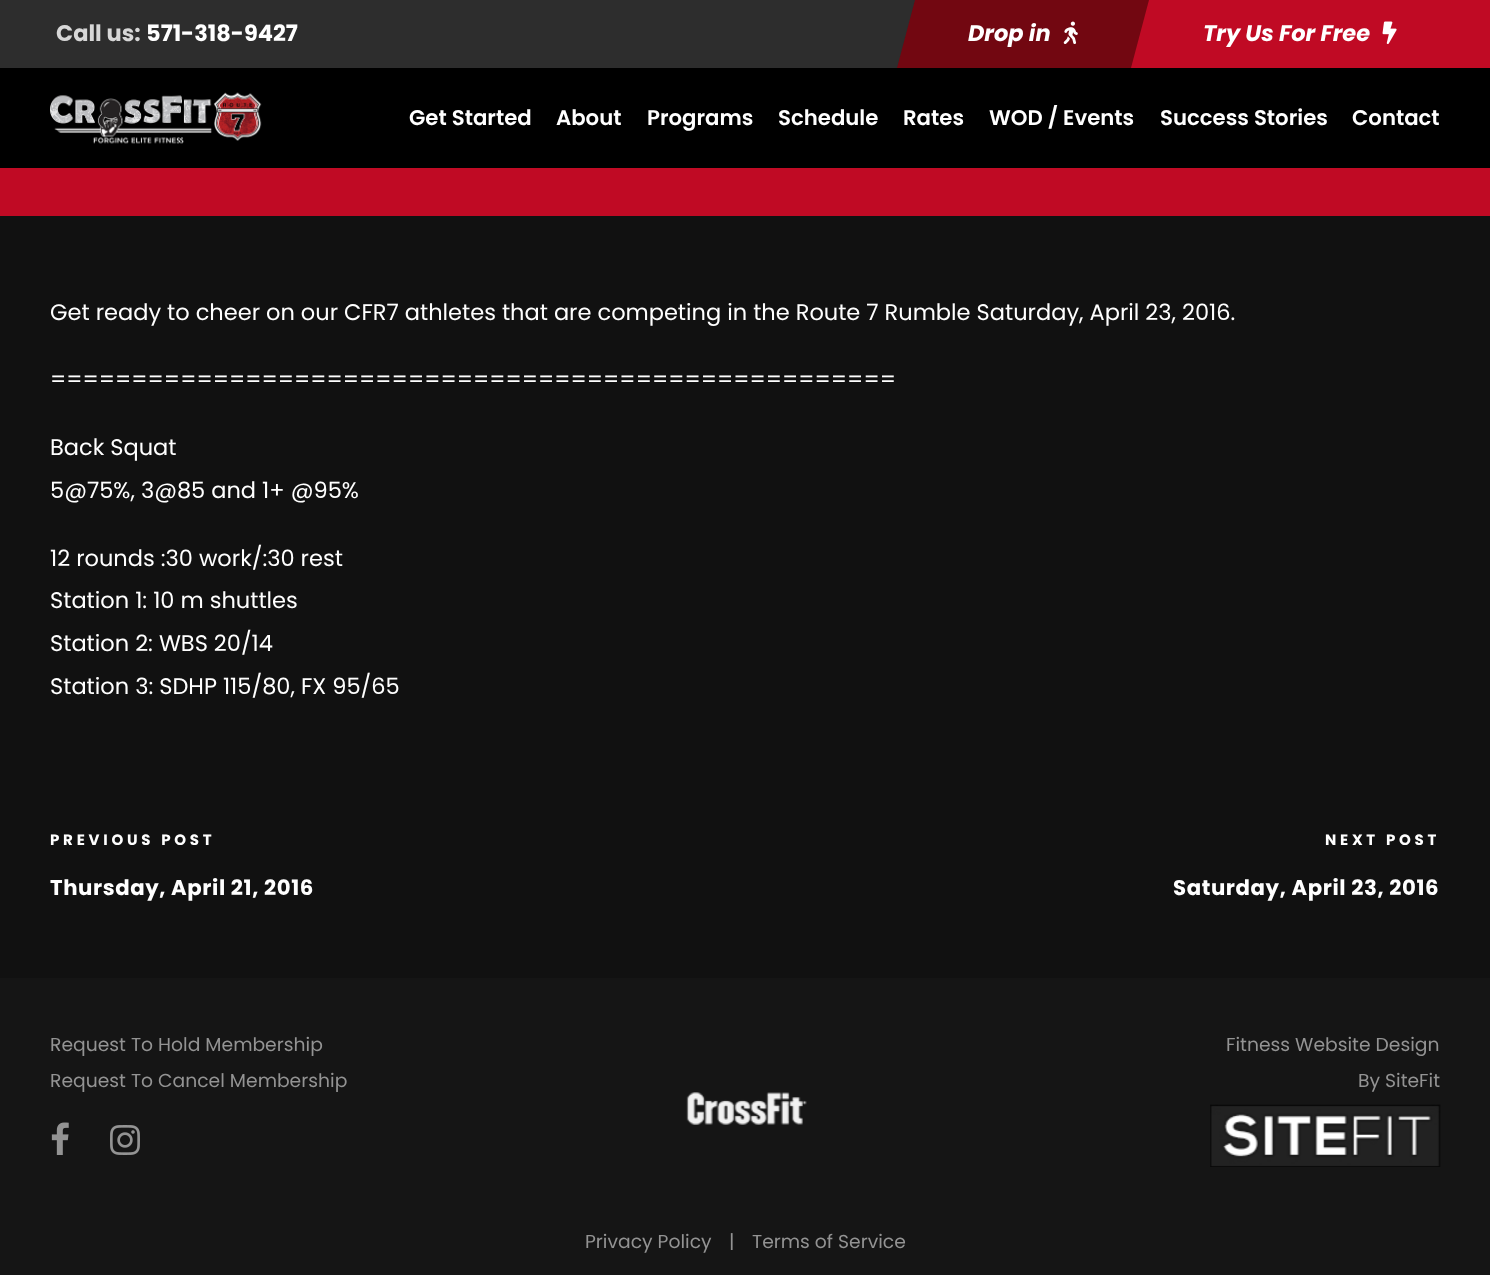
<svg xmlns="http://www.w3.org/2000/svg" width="1490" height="1275">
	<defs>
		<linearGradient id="g1" gradientUnits="userSpaceOnUse" x1="-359" y1="34" x2="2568" y2="34"><stop offset="0" stop-color="#444444" /><stop offset="0.5" stop-color="#720711" /><stop offset="0.5" stop-color="#C00A24" /><stop offset="1" stop-color="#C00A24" /></linearGradient>
	</defs>
	<rect width="100%" height="100%" fill="#111111" />
	<rect x="0" y="0" width="915" height="68" fill="#2D2D2D" />
	<text x="56" y="41" font-family="Poppins" font-size="22.5" font-weight="700" fill="#D7D7D7">Call us:</text>
	<text x="146" y="41" font-family="Poppins" font-size="22.5" font-weight="700" fill="#FFFFFF">571-318-9427</text>
	<path d="M915 0H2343L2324 68H897Z" fill="#720711" />
	<text x="968" y="41" font-family="Poppins" font-size="22.5" font-weight="700" font-style="italic" fill="#FFFFFF">Drop in</text>
	<image x="1063" y="21" width="15" height="23" href="assets/img1.png" />
	<path d="M1149 0H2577L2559 68H1131Z" fill="url(#g1)" />
	<text x="1203" y="41" font-family="Poppins" font-size="22.5" font-weight="700" font-style="italic" fill="#FFFFFF">Try Us For Free</text>
	<image x="1382" y="21" width="15" height="23" href="assets/img2.png" />
	<rect x="0" y="168" width="1490" height="48" fill="#C00A24" />
	<g font-family="Poppins" font-size="22.5" fill="#FFFFFF">
		<text x="50" y="320">Get ready to cheer on our CFR7 athletes that are competing in the Route 7 Rumble Saturday, April 23, 2016.</text>
		<text x="50" y="387">====================================================</text>
		<text x="50" y="455">Back Squat</text>
		<text x="50" y="498">5@75%, 3@85 and 1+ @95%</text>
		<text x="50" y="566">12 rounds :30 work/:30 rest</text>
		<text x="50" y="608">Station 1: 10 m shuttles</text>
		<text x="50" y="651">Station 2: WBS 20/14</text>
		<text x="50" y="694">Station 3: SDHP 115/80, FX 95/65</text>
	</g>
	<text x="50" y="845" font-family="Poppins" font-size="15" font-weight="700" letter-spacing="3.75" fill="#FFFFFF">PREVIOUS POST</text>
	<text x="50" y="895" font-family="Poppins" font-size="21.25" font-weight="700" letter-spacing="0.6" fill="#FFFFFF">Thursday, April 21, 2016</text>
	<text x="1325" y="845" font-family="Poppins" font-size="15" font-weight="700" letter-spacing="3.75" fill="#FFFFFF">NEXT POST</text>
	<text x="1173" y="895" font-family="Poppins" font-size="21.25" font-weight="700" letter-spacing="0.6" fill="#FFFFFF">Saturday, April 23, 2016</text>
	<rect x="0" y="978" width="1490" height="297" fill="#151515" />
	<g font-family="Poppins" font-size="18.75" fill="#939393">
		<text x="50" y="1051">Request To Hold Membership</text>
		<text x="50" y="1087">Request To Cancel Membership</text>
	</g>
	<image x="51" y="1122" width="18" height="33" href="assets/img3.png" />
	<image x="110" y="1125" width="30" height="30" href="assets/img4.png" />
	<g font-family="Poppins" font-size="18.75" fill="#939393">
		<text x="1226" y="1051">Fitness Website Design</text>
		<text x="1358" y="1087">By SiteFit</text>
	</g>
	<image x="1210" y="1104" width="231" height="63" href="assets/img5.png" />
	<image x="686" y="1092" width="121" height="33" href="assets/img6.png" />
	<g font-family="Poppins" font-size="18.75" fill="#939393">
		<text x="585" y="1248">Privacy Policy</text>
		<text x="729" y="1248">|</text>
		<text x="752" y="1248">Terms of Service</text>
	</g>
	<rect x="0" y="68" width="1490" height="100" fill="#000000" />
	<image x="50" y="92" width="212" height="52" href="assets/img7.png" />
	<g font-family="Poppins" font-size="21.25" font-weight="600" fill="#FFFFFF">
		<text x="409" y="125">Get Started</text>
		<text x="556" y="125">About</text>
		<text x="647" y="125">Programs</text>
		<text x="778" y="125">Schedule</text>
		<text x="903" y="125">Rates</text>
		<text x="989" y="125">WOD / Events</text>
		<text x="1160" y="125">Success Stories</text>
		<text x="1352" y="125">Contact</text>
	</g>
</svg>
